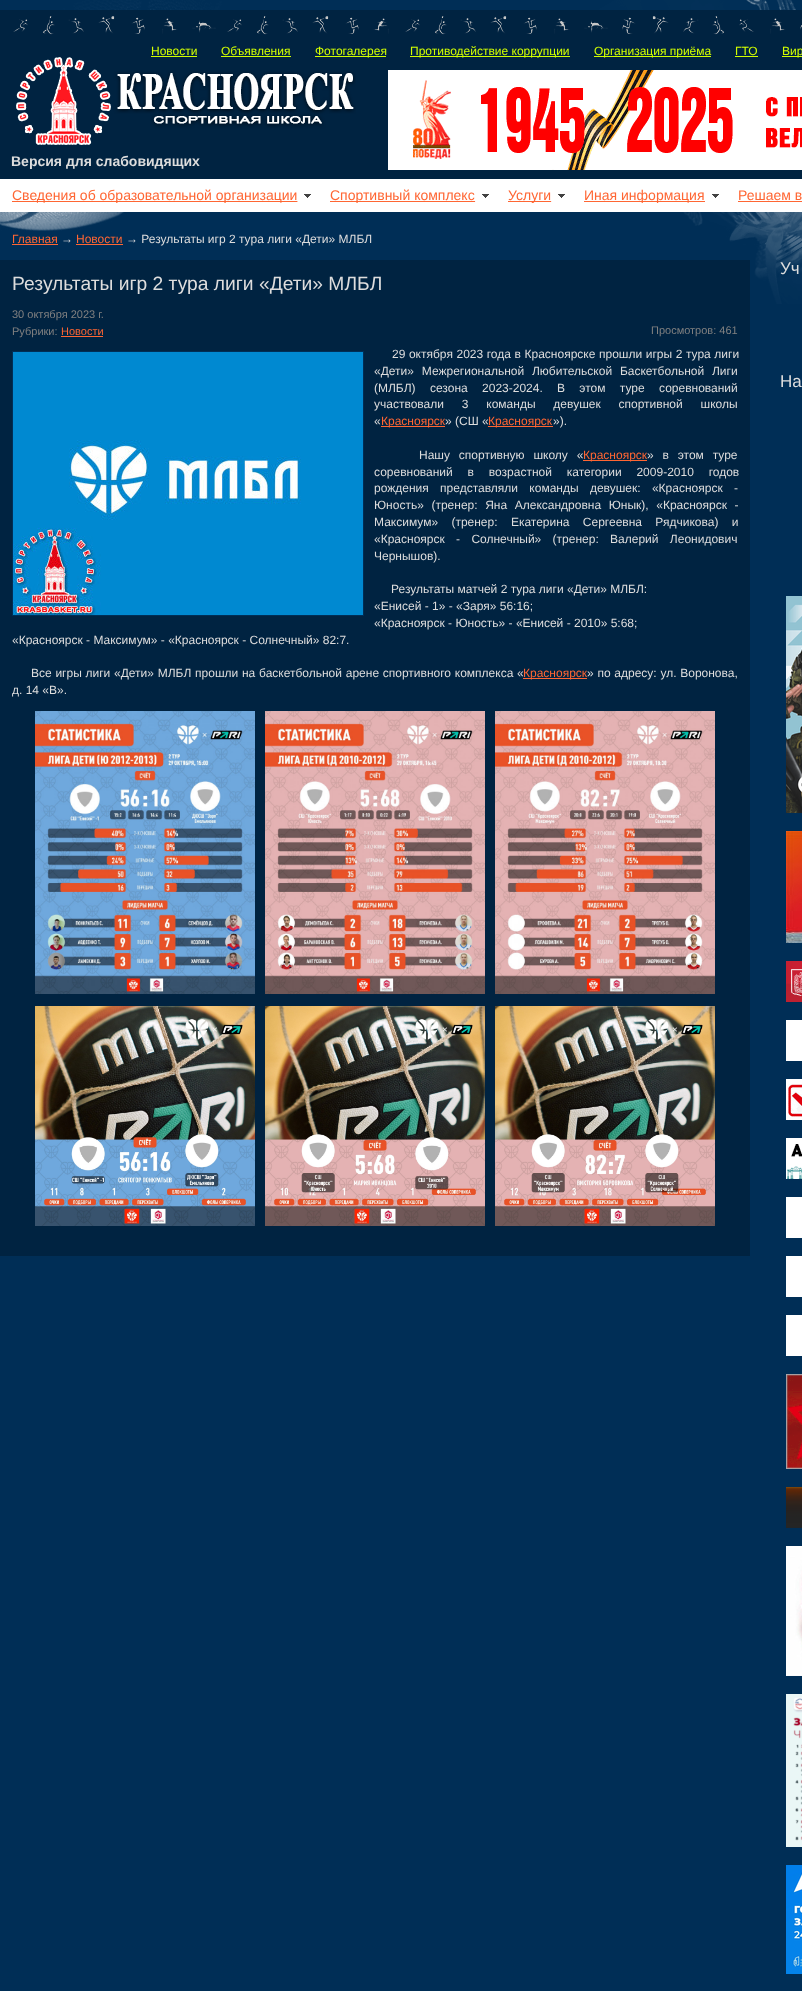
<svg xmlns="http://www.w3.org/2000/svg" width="802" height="1991">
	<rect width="100%" height="100%" fill="#002E56" />
	<image x="0" y="0" width="230" height="231" href="assets/img1.png" />
	<image x="566" y="0" width="236" height="304" href="assets/img2.png" />
	<rect x="0" y="10" width="802" height="169" fill="#002341" />
	<image x="13" y="16" width="789" height="19" href="assets/img3.png" />
	<text x="151" y="55" font-family="Liberation Sans" font-size="12" fill="#D2FF00">Новости</text>
	<rect x="151" y="56" width="46" height="1" fill="#D2FF00" />
	<text x="221" y="55" font-family="Liberation Sans" font-size="12" fill="#D2FF00">Объявления</text>
	<rect x="221" y="56" width="70" height="1" fill="#D2FF00" />
	<rect x="315" y="56" width="71" height="1" fill="#D2FF00" />
	<image x="16" y="57" width="340" height="88" href="assets/img4.png" />
	<text x="315" y="55" font-family="Liberation Sans" font-size="12" fill="#D2FF00">Фотогалерея</text>
	<rect x="410" y="56" width="160" height="1" fill="#D2FF00" />
	<text x="410" y="55" font-family="Liberation Sans" font-size="12" fill="#D2FF00">Противодействие коррупции</text>
	<rect x="594" y="56" width="117" height="1" fill="#D2FF00" />
	<g font-family="Liberation Sans" font-size="12" fill="#D2FF00">
		<text x="594" y="55">Организация приёма</text>
		<text x="735" y="55">ГТО</text>
	</g>
	<rect x="735" y="56" width="23" height="1" fill="#D2FF00" />
	<rect x="782" y="56" width="20" height="1" fill="#D2FF00" />
	<text x="782" y="55" font-family="Liberation Sans" font-size="12" fill="#D2FF00">Вир</text>
	<image x="388" y="70" width="414" height="100" href="assets/img5.png" />
	<text x="11" y="166" font-family="Liberation Sans" font-size="14" font-weight="700" fill="#DDDDDD">Версия для слабовидящих</text>
	<rect x="0" y="179" width="802" height="33" fill="#FFFFFF" />
	<image x="297" y="194" width="14" height="8" href="assets/img6.png" />
	<rect x="12" y="201" width="285" height="1" fill="#FF6633" />
	<text x="12" y="200" font-family="Liberation Sans" font-size="14" fill="#FF6633">Сведения об образовательной организации</text>
	<image x="475" y="194" width="14" height="8" href="assets/img7.png" />
	<rect x="330" y="201" width="145" height="1" fill="#FF6633" />
	<text x="330" y="200" font-family="Liberation Sans" font-size="14" fill="#FF6633">Спортивный комплекс</text>
	<image x="551" y="194" width="14" height="8" href="assets/img8.png" />
	<rect x="508" y="201" width="43" height="1" fill="#FF6633" />
	<text x="508" y="200" font-family="Liberation Sans" font-size="14" fill="#FF6633">Услуги</text>
	<image x="712" y="194" width="7" height="4" href="assets/img9.png" />
	<rect x="584" y="201" width="121" height="1" fill="#FF6633" />
	<g font-family="Liberation Sans" font-size="14" fill="#FF6633">
		<text x="584" y="200">Иная информация</text>
		<text x="738" y="200">Решаем в</text>
	</g>
	<rect x="738" y="201" width="64" height="1" fill="#FF6633" />
	<text x="12" y="243" font-family="Liberation Sans" font-size="12" fill="#FF6633">Главная</text>
	<rect x="12" y="244" width="46" height="1" fill="#FF6633" />
	<text x="61" y="243" font-family="Liberation Sans" font-size="12" fill="#DDDDDD">→</text>
	<text x="76" y="243" font-family="Liberation Sans" font-size="12" fill="#FF6633">Новости</text>
	<rect x="76" y="244" width="47" height="1" fill="#FF6633" />
	<text x="126" y="243" font-family="Liberation Sans" font-size="12" fill="#DDDDDD">→ Результаты игр 2 тура лиги «Дети» МЛБЛ</text>
	<rect x="0" y="260" width="750" height="996" fill="#002341" />
	<text x="12" y="290" font-family="Liberation Sans" font-size="19.25" fill="#DDDDDD">Результаты игр 2 тура лиги «Дети» МЛБЛ</text>
	<g font-family="Liberation Sans" font-size="11" fill="#808080">
		<text x="12" y="318">30 октября 2023 г.</text>
		<text x="12" y="335">Рубрики:</text>
	</g>
	<text x="61" y="335" font-family="Liberation Sans" font-size="11" fill="#FF6633">Новости</text>
	<rect x="61" y="336" width="42" height="1" fill="#FF6633" />
	<text x="651" y="334" font-family="Liberation Sans" font-size="11" fill="#808080">Просмотров: 461</text>
	<g font-family="Liberation Sans" font-size="12" fill="#DDDDDD">
		<text x="392" y="358" word-spacing="0.25">29 октября 2023 года в Красноярске прошли игры 2 тура лиги</text>
		<text x="374" y="375" word-spacing="4.5">«Дети» Межрегиональной Любительской Баскетбольной Лиги</text>
		<text x="374" y="392" word-spacing="11">(МЛБЛ) сезона 2023-2024.</text>
		<text x="557" y="392" word-spacing="11">В этом туре соревнований</text>
		<text x="374" y="408" word-spacing="14.5">участвовали 3 команды девушек спортивной школы</text>
		<text x="374" y="425">«</text>
	</g>
	<rect x="381" y="426" width="64" height="1" fill="#FF6633" />
	<text x="381" y="425" font-family="Liberation Sans" font-size="12" fill="#FF6633">Красноярск</text>
	<text x="445" y="425" font-family="Liberation Sans" font-size="12" fill="#DDDDDD">» (СШ «</text>
	<rect x="488" y="426" width="65" height="1" fill="#FF6633" />
	<text x="488" y="425" font-family="Liberation Sans" font-size="12" fill="#FF6633">Красноярск</text>
	<g font-family="Liberation Sans" font-size="12" fill="#DDDDDD">
		<text x="553" y="425">»).</text>
		<text x="419" y="459" word-spacing="5.5">Нашу спортивную школу «</text>
	</g>
	<rect x="583" y="460" width="64" height="1" fill="#FF6633" />
	<text x="583" y="459" font-family="Liberation Sans" font-size="12" fill="#FF6633">Красноярск</text>
	<g font-family="Liberation Sans" font-size="12" fill="#DDDDDD">
		<text x="647" y="459" word-spacing="5.5">» в этом туре</text>
		<text x="374" y="476" word-spacing="11.5">соревнований в возрастной категории 2009-2010 годов</text>
		<text x="374" y="492" word-spacing="8">рождения представляли команды девушек: «Красноярск -</text>
		<text x="374" y="509" word-spacing="4.25">Юность» (тренер: Яна Александровна Юнык), «Красноярск -</text>
		<text x="374" y="526" word-spacing="10">Максимум» (тренер: Екатерина Сергеевна Рядчикова) и</text>
		<text x="374" y="543" word-spacing="8">«Красноярск - Солнечный» (тренер: Валерий Леонидович</text>
		<text x="374" y="560">Чернышов).</text>
		<text x="391" y="593">Результаты матчей 2 тура лиги «Дети» МЛБЛ:</text>
		<text x="374" y="610">«Енисей - 1» - «Заря» 56:16;</text>
		<text x="374" y="627">«Красноярск - Юность» - «Енисей - 2010» 5:68;</text>
		<text x="12" y="644">«Красноярск - Максимум» - «Красноярск - Солнечный» 82:7.</text>
		<text x="31" y="677" word-spacing="0.4">Все игры лиги «Дети» МЛБЛ прошли на баскетбольной арене спортивного комплекса «</text>
	</g>
	<rect x="523" y="678" width="64" height="1" fill="#FF6633" />
	<text x="523" y="677" font-family="Liberation Sans" font-size="12" fill="#FF6633">Красноярск</text>
	<g font-family="Liberation Sans" font-size="12" fill="#DDDDDD">
		<text x="587" y="677" word-spacing="0.4">» по адресу: ул. Воронова,</text>
		<text x="12" y="694">д. 14 «В».</text>
	</g>
	<rect x="12.5" y="351.5" width="351" height="264" fill="none" stroke="#002E56" />
	<image x="13" y="352" width="350" height="263" href="assets/img10.png" />
	<image x="35" y="711" width="220" height="283" href="assets/img11.png" />
	<image x="265" y="711" width="220" height="283" href="assets/img12.png" />
	<image x="495" y="711" width="220" height="283" href="assets/img13.png" />
	<image x="35" y="1006" width="220" height="220" href="assets/img14.png" />
	<image x="265" y="1006" width="220" height="220" href="assets/img15.png" />
	<image x="495" y="1006" width="220" height="220" href="assets/img16.png" />
	<g font-family="Liberation Sans" font-size="17" fill="#DDDDDD">
		<text x="780" y="274">Уч</text>
		<text x="780" y="387">На</text>
	</g>
	<image x="786" y="596" width="16" height="217" href="assets/img17.png" />
	<image x="786" y="831" width="16" height="112" href="assets/img18.png" />
	<image x="786" y="961" width="16" height="41" href="assets/img19.png" />
	<rect x="786" y="1020" width="16" height="41" fill="#FFFFFF" />
	<image x="786" y="1079" width="16" height="41" href="assets/img20.png" />
	<image x="786" y="1138" width="16" height="41" href="assets/img21.png" />
	<rect x="786" y="1197" width="16" height="41" fill="#FFFFFF" />
	<rect x="786" y="1256" width="16" height="41" fill="#FFFFFF" />
	<rect x="786" y="1315" width="16" height="41" fill="#FFFFFF" />
	<image x="786" y="1374" width="16" height="95" href="assets/img22.png" />
	<image x="786" y="1487" width="16" height="41" href="assets/img23.png" />
	<image x="786" y="1546" width="16" height="130" href="assets/img24.png" />
	<image x="786" y="1694" width="16" height="153" href="assets/img25.png" />
	<image x="786" y="1865" width="16" height="109" href="assets/img26.png" />
</svg>
